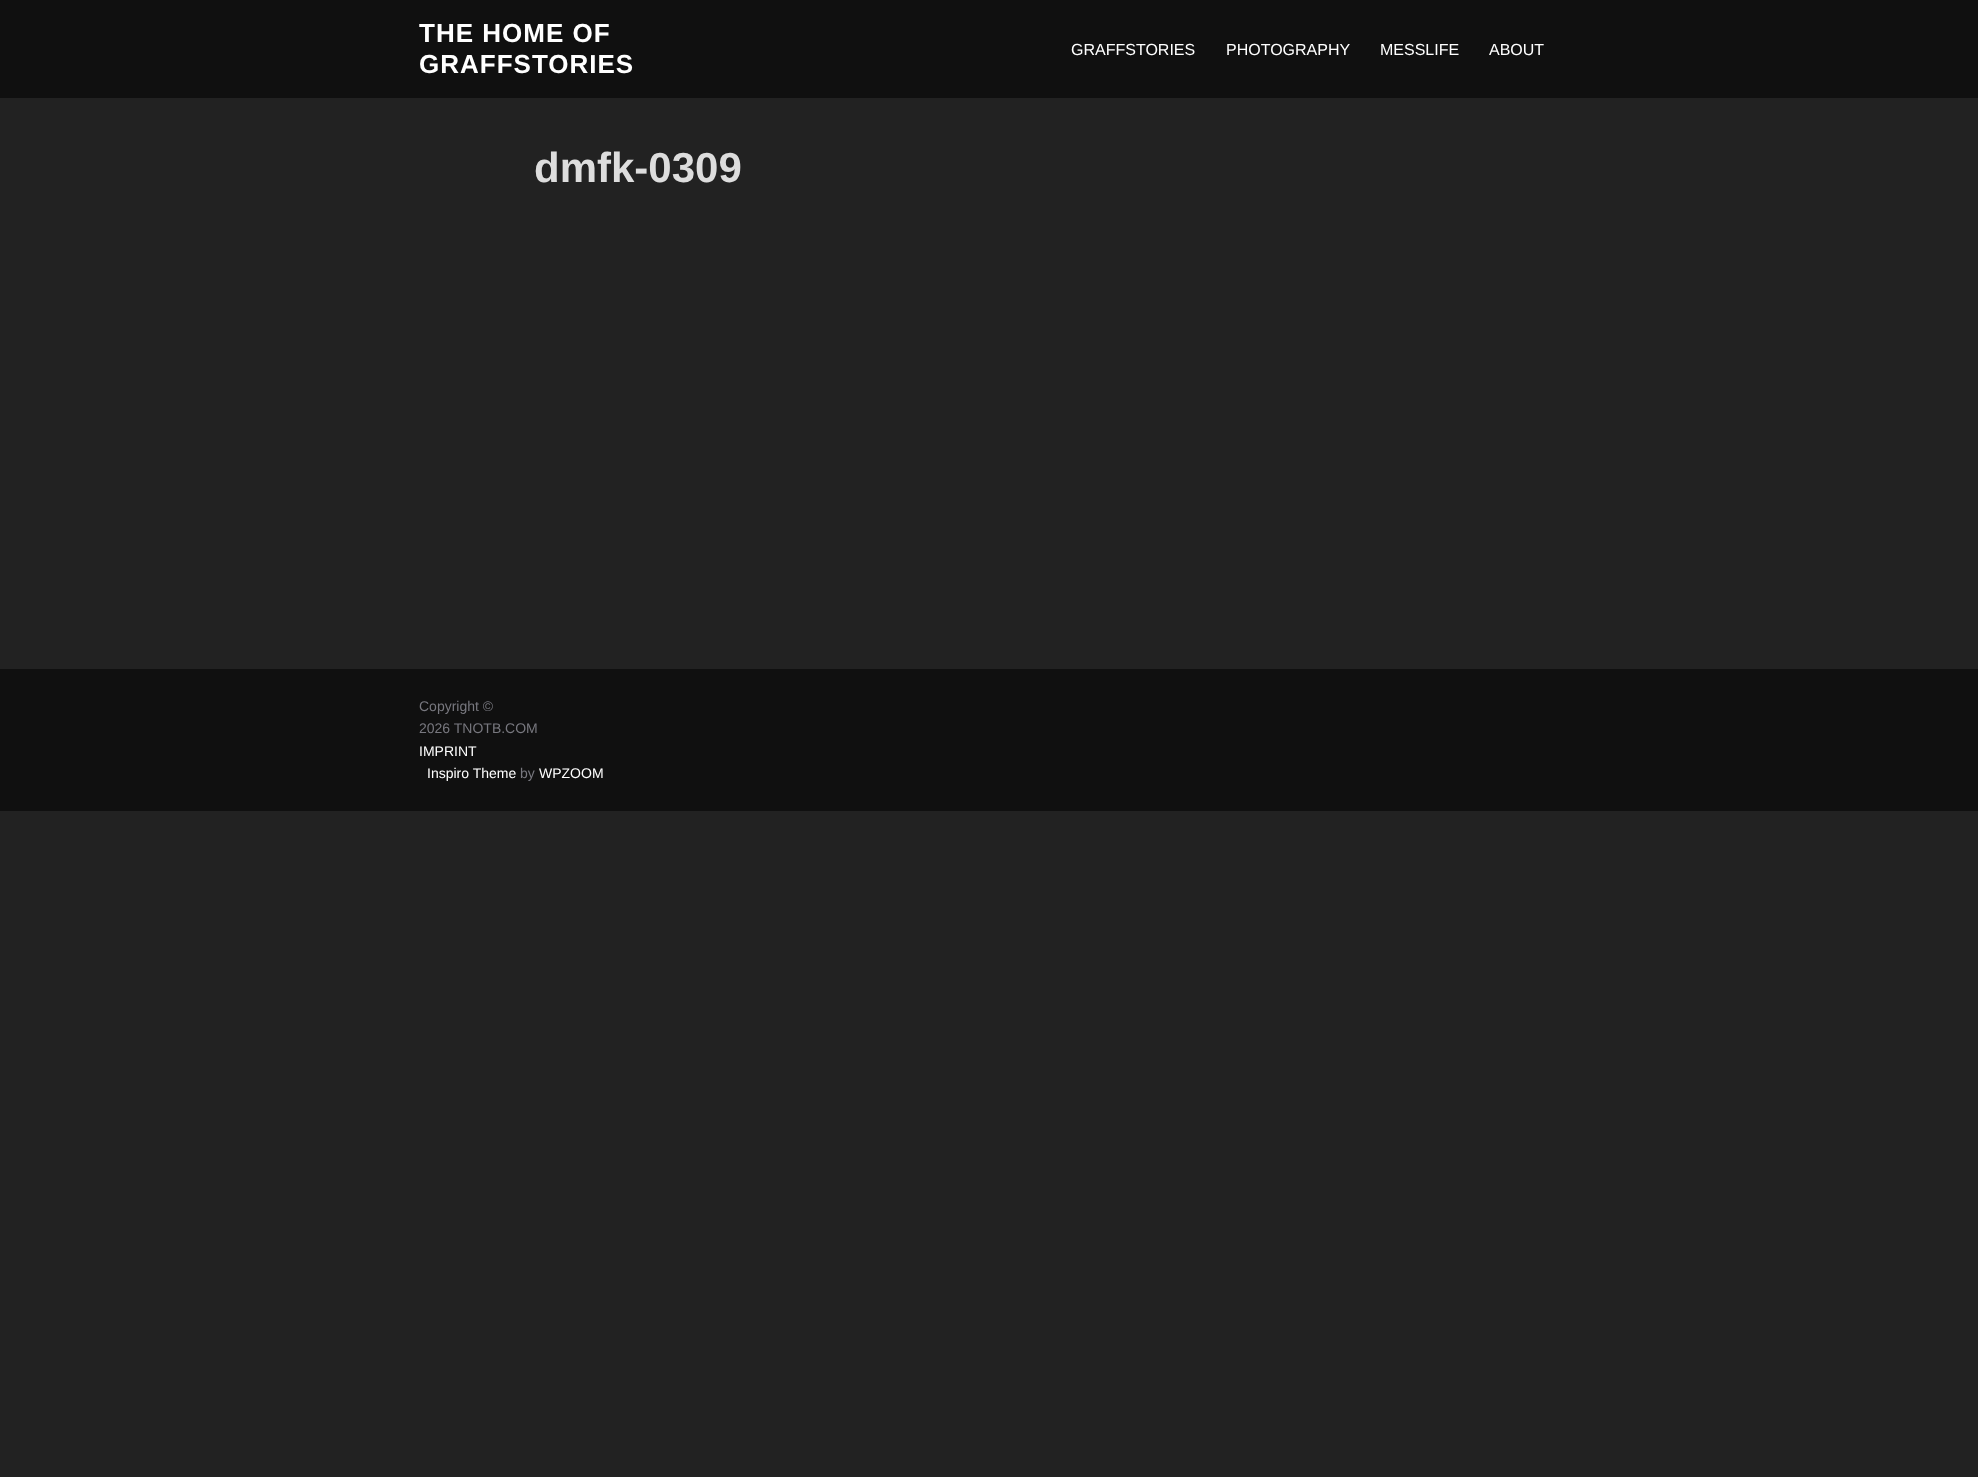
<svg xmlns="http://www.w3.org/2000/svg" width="1978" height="1477">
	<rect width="100%" height="100%" fill="#222222" />
	<rect x="0" y="0" width="1978" height="98" fill="#101010" />
	<g font-family="Liberation Sans" font-size="26" font-weight="700" letter-spacing="1" fill="#FFFFFF">
		<text x="419" y="42">THE HOME OF</text>
		<text x="419" y="73">GRAFFSTORIES</text>
	</g>
	<g font-family="Liberation Sans" font-size="16" fill="#FFFFFF">
		<text x="1071" y="55">GRAFFSTORIES</text>
		<text x="1226" y="55">PHOTOGRAPHY</text>
		<text x="1380" y="55">MESSLIFE</text>
		<text x="1489" y="55">ABOUT</text>
	</g>
	<text x="534" y="182" font-family="Liberation Sans" font-size="42" font-weight="700" fill="#DDDDDD">dmfk-0309</text>
	<rect x="0" y="669" width="1978" height="142" fill="#101010" />
	<g font-family="Liberation Sans" font-size="14" fill="#78787F">
		<text x="419" y="711">Copyright ©</text>
		<text x="419" y="733">2026 TNOTB.COM</text>
	</g>
	<g font-family="Liberation Sans" font-size="14" fill="#FFFFFF">
		<text x="419" y="756">IMPRINT</text>
		<text x="427" y="778">Inspiro Theme</text>
	</g>
	<text x="520" y="778" font-family="Liberation Sans" font-size="14" fill="#78787F">by</text>
	<text x="539" y="778" font-family="Liberation Sans" font-size="14" fill="#FFFFFF">WPZOOM</text>
</svg>
